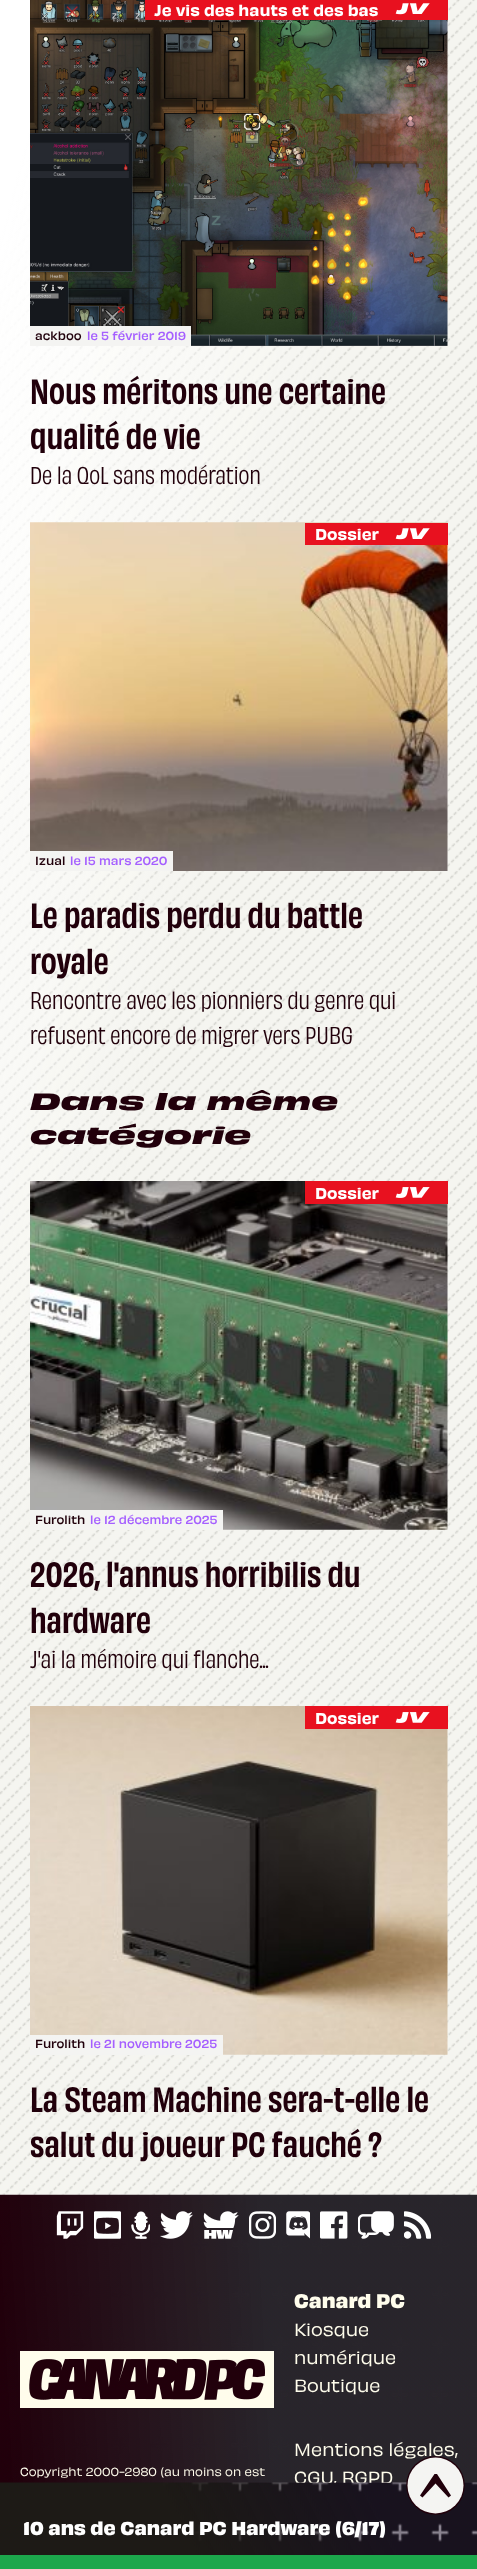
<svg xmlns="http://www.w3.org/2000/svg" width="477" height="2569">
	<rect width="100%" height="100%" fill="#F4F4F2" />
	<image x="0" y="0" width="477" height="2195" href="assets/img1.png" />
	<image x="30" y="0" width="418" height="346" href="assets/img2.png" />
	<rect x="145" y="0" width="303" height="20" fill="#E8111F" />
	<text x="154" y="16" font-family="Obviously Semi" font-size="14.6" font-weight="600" fill="#FFFFFF">Je vis des hauts et des bas</text>
	<image x="395" y="3" width="35" height="12" href="assets/img3.png" />
	<rect x="30" y="326" width="161" height="20" fill="#F4F4F2" />
	<text x="35" y="340" font-family="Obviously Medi" font-size="11" font-weight="600" fill="#21000B">ackboo</text>
	<text x="87" y="340" font-family="Obviously Medi" font-size="11" font-weight="600" fill="#A55FFF">le 5 février 2019</text>
	<g font-family="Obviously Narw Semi" font-size="32.75" font-weight="500" fill="#21000B">
		<text x="30" y="404">Nous méritons une certaine</text>
		<text x="30" y="449">qualité de vie</text>
	</g>
	<text x="30" y="484" font-family="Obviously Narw" font-size="22.75" font-weight="500" fill="#21000B">De la QoL sans modération</text>
	<image x="30" y="522" width="418" height="349" href="assets/img4.png" />
	<rect x="305" y="523" width="143" height="22" fill="#E8111F" />
	<text x="315" y="540" font-family="Obviously Semi" font-size="14.6" font-weight="600" fill="#FFFFFF">Dossier</text>
	<image x="395" y="528" width="35" height="12" href="assets/img3.png" />
	<rect x="30" y="851" width="143" height="20" fill="#F4F4F2" />
	<text x="35" y="865" font-family="Obviously Medi" font-size="11" font-weight="600" fill="#21000B">Izual</text>
	<text x="70" y="865" font-family="Obviously Medi" font-size="11" font-weight="600" fill="#A55FFF">le 15 mars 2020</text>
	<g font-family="Obviously Narw Semi" font-size="32.75" font-weight="500" fill="#21000B">
		<text x="30" y="928">Le paradis perdu du battle</text>
		<text x="30" y="974">royale</text>
	</g>
	<g font-family="Obviously Narw" font-size="22.75" font-weight="500" fill="#21000B">
		<text x="30" y="1009">Rencontre avec les pionniers du genre qui</text>
		<text x="30" y="1044">refusent encore de migrer vers PUBG</text>
	</g>
	<g font-family="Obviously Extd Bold" font-size="22" font-weight="700" font-style="italic" fill="#21000B">
		<text x="30" y="1110">Dans la même</text>
		<text x="30" y="1144">catégorie</text>
	</g>
	<image x="30" y="1181" width="418" height="349" href="assets/img5.png" />
	<rect x="305" y="1181" width="143" height="23" fill="#E8111F" />
	<text x="315" y="1199" font-family="Obviously Semi" font-size="14.6" font-weight="600" fill="#FFFFFF">Dossier</text>
	<image x="395" y="1187" width="35" height="11" href="assets/img6.png" />
	<rect x="30" y="1510" width="193" height="20" fill="#F4F4F2" />
	<text x="35" y="1524" font-family="Obviously Medi" font-size="11" font-weight="600" fill="#21000B">Furolith</text>
	<text x="90" y="1524" font-family="Obviously Medi" font-size="11" font-weight="600" fill="#A55FFF">le 12 décembre 2025</text>
	<g font-family="Obviously Narw Semi" font-size="32.75" font-weight="500" fill="#21000B">
		<text x="30" y="1587">2026, l'annus horribilis du</text>
		<text x="30" y="1633">hardware</text>
	</g>
	<text x="30" y="1668" font-family="Obviously Narw" font-size="22.75" font-weight="500" fill="#21000B">J'ai la mémoire qui flanche...</text>
	<image x="30" y="1706" width="418" height="349" href="assets/img7.png" />
	<rect x="305" y="1706" width="143" height="23" fill="#E8111F" />
	<text x="315" y="1724" font-family="Obviously Semi" font-size="14.6" font-weight="600" fill="#FFFFFF">Dossier</text>
	<image x="395" y="1712" width="35" height="11" href="assets/img6.png" />
	<rect x="30" y="2035" width="193" height="20" fill="#F4F4F2" />
	<text x="35" y="2048" font-family="Obviously Medi" font-size="11" font-weight="600" fill="#21000B">Furolith</text>
	<text x="90" y="2048" font-family="Obviously Medi" font-size="11" font-weight="600" fill="#A55FFF">le 21 novembre 2025</text>
	<g font-family="Obviously Narw Semi" font-size="32.75" font-weight="500" fill="#21000B">
		<text x="30" y="2112">La Steam Machine sera-t-elle le</text>
		<text x="30" y="2157">salut du joueur PC fauché ?</text>
	</g>
	<image x="0" y="2194" width="477" height="289" href="assets/img8.png" />
	<image x="56" y="2211" width="28" height="28" href="assets/img9.png" />
	<image x="94" y="2211" width="27" height="28" href="assets/img10.png" />
	<image x="131" y="2211" width="19" height="28" href="assets/img11.png" />
	<image x="160" y="2211" width="33" height="28" href="assets/img12.png" />
	<image x="203" y="2211" width="36" height="28" href="assets/img13.png" />
	<image x="249" y="2211" width="27" height="28" href="assets/img14.png" />
	<image x="286" y="2211" width="24" height="28" href="assets/img15.png" />
	<image x="320" y="2211" width="28" height="28" href="assets/img16.png" />
	<image x="358" y="2211" width="36" height="28" href="assets/img17.png" />
	<image x="404" y="2211" width="27" height="28" href="assets/img18.png" />
	<rect x="20" y="2351" width="254" height="57" fill="#FFFDEC" />
	<image x="29" y="2359" width="236" height="41" href="assets/img19.png" />
	<text x="294" y="2308" font-family="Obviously" font-size="18.25" font-weight="700" fill="#FFFDEC">Canard PC</text>
	<g font-family="Obviously" font-size="16.5" font-weight="600" fill="#FFFDEC">
		<text x="294" y="2336">Kiosque</text>
		<text x="294" y="2364">numérique</text>
		<text x="294" y="2392">Boutique</text>
	</g>
	<text x="20" y="2476" font-family="Obviously" font-size="11" font-weight="600" fill="#FFFDEC">Copyright 2000-2980 (au moins on est</text>
	<g font-family="Obviously" font-size="16.5" font-weight="600" fill="#FFFDEC">
		<text x="294" y="2456">Mentions légales,</text>
		<text x="294" y="2484">CGU, RGPD</text>
	</g>
	<rect x="165" y="2483" width="312" height="72" fill="#151515" />
	<image x="0" y="2482" width="477" height="73" href="assets/img20.png" />
	<circle cx="435.5" cy="2485.5" r="28" fill="none" stroke="#21000B" stroke-width="2.5" />
	<circle cx="435.5" cy="2485.5" r="28" fill="#F4F4F2" />
	<path d="M434.5 2474H437L451 2495.5L448.5 2497.5L435.5 2483.5L422.5 2497.5L420 2495.5Z" fill="#21000B" />
	<text x="23" y="2535" font-family="Obviously" font-size="17.5" font-weight="700" fill="#FFFFFF">10 ans de Canard PC Hardware (6/17)</text>
	<rect x="0" y="2555" width="477" height="14" fill="#1CA74C" />
</svg>
